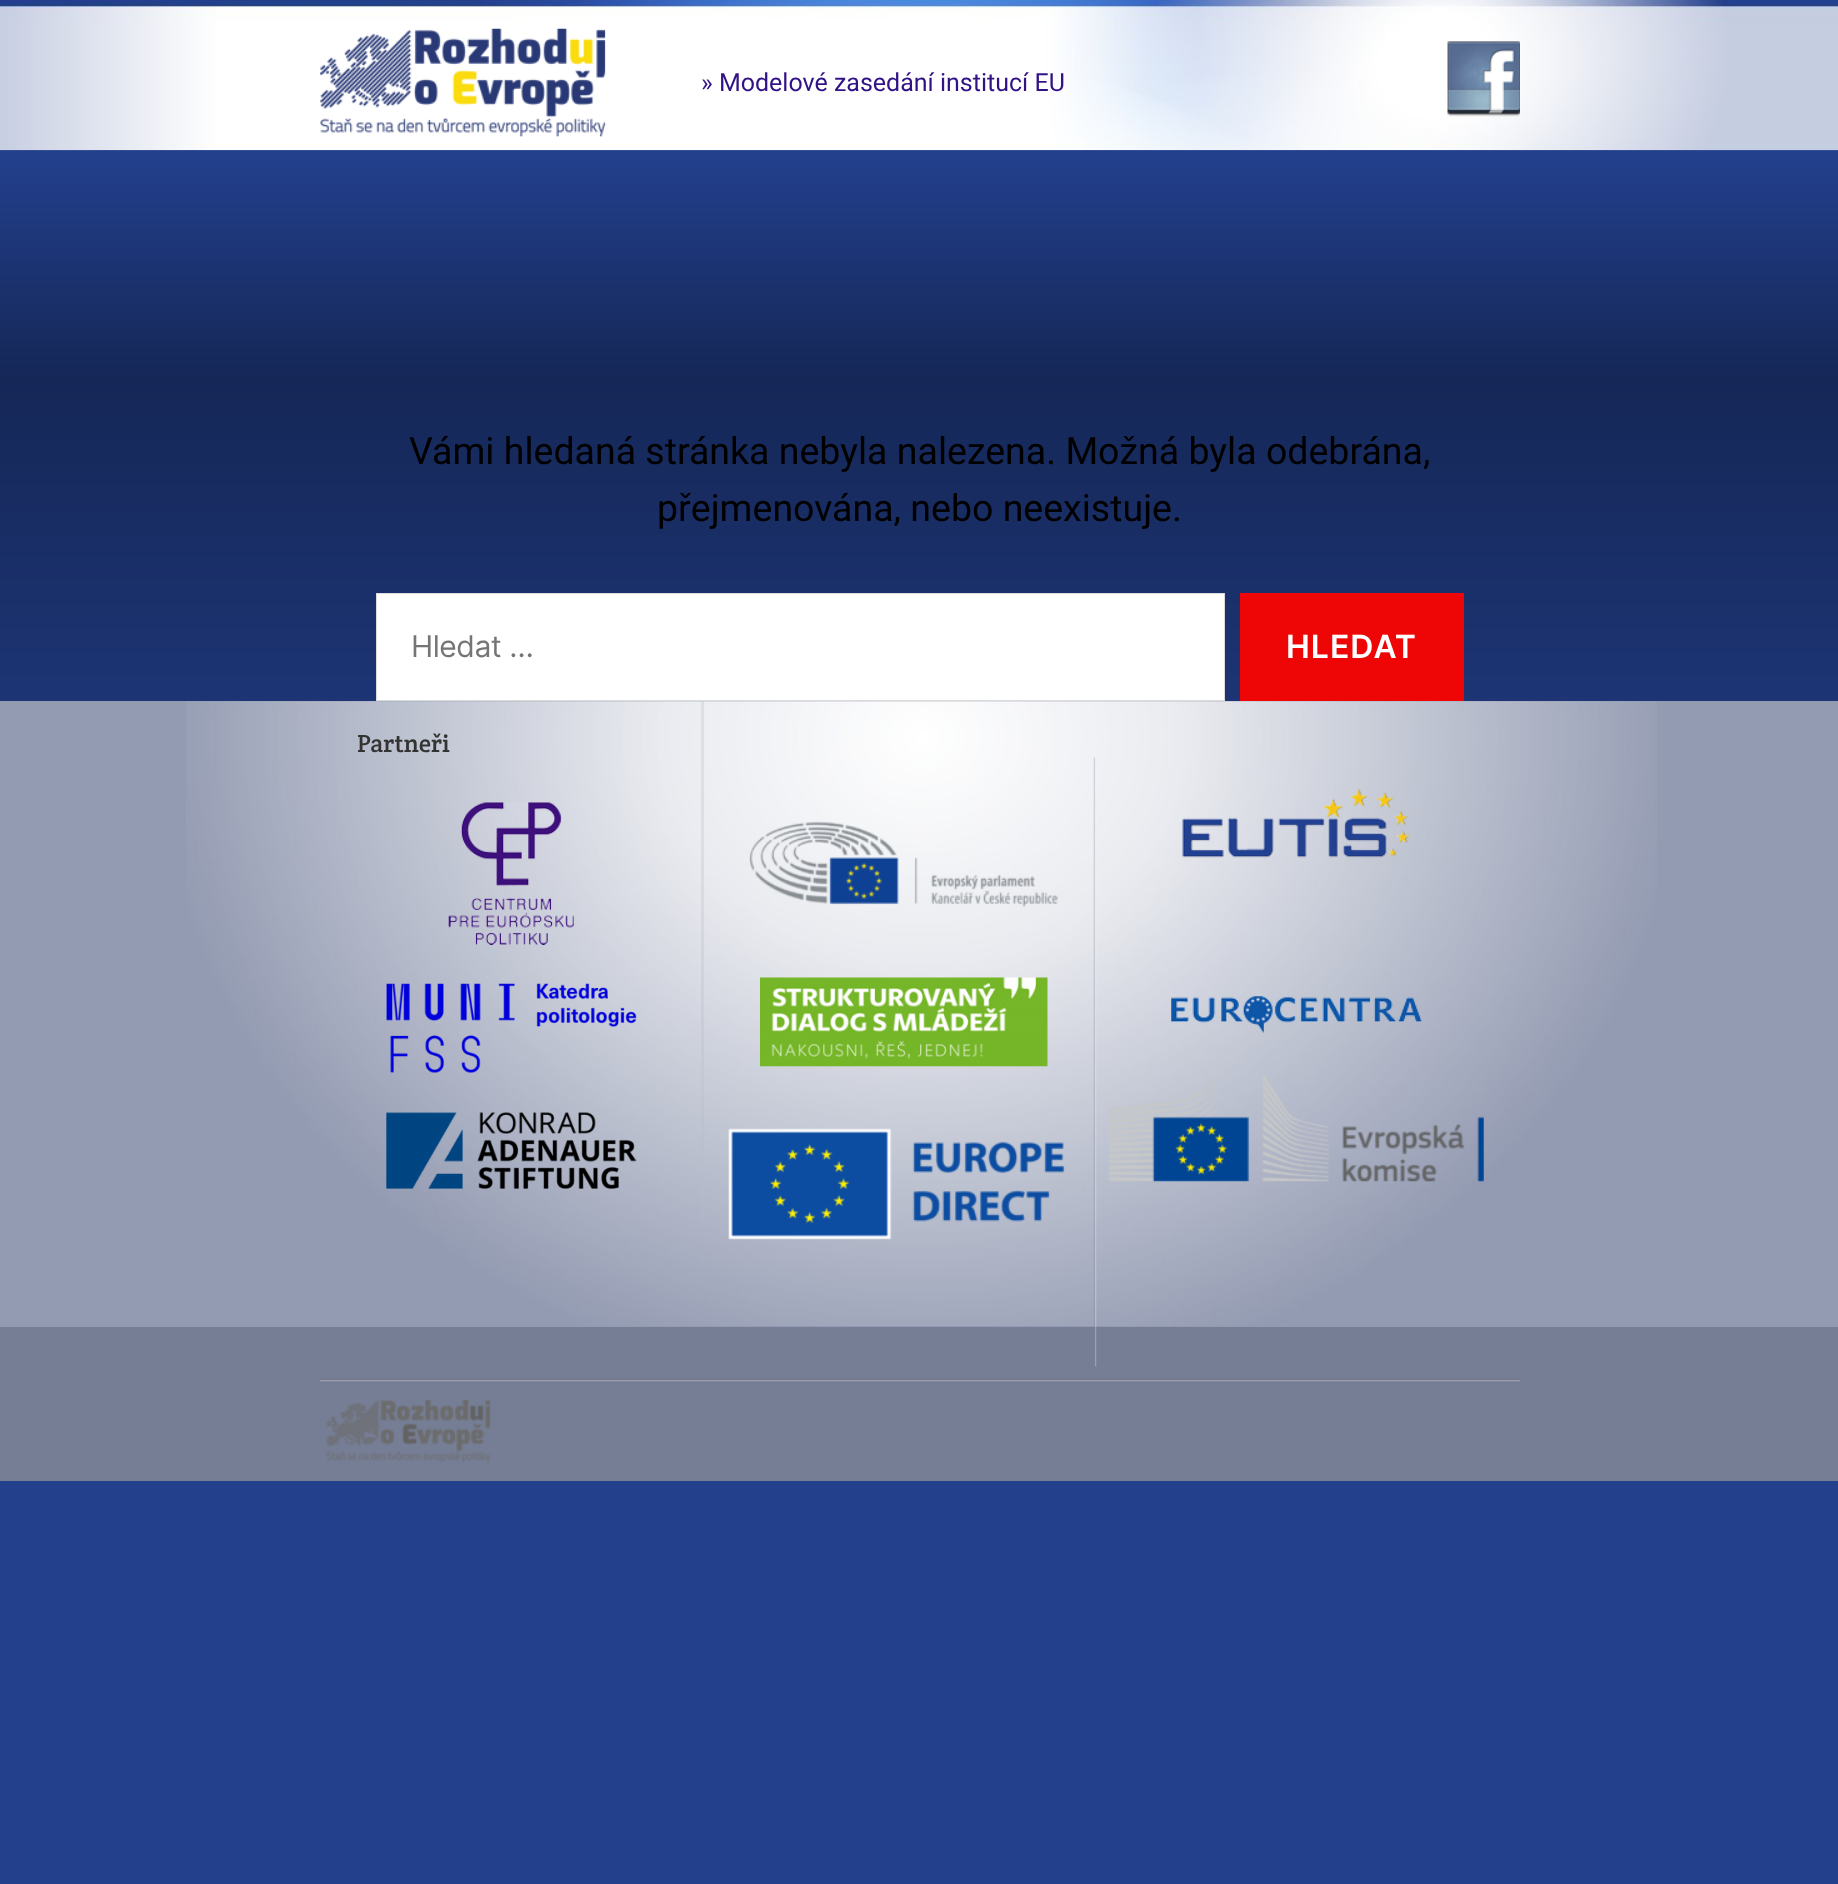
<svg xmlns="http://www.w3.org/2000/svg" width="1838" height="1884">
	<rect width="100%" height="100%" fill="#23408D" />
	<image x="0" y="150" width="1838" height="551" href="assets/img1.png" />
	<image x="0" y="0" width="1838" height="150" href="assets/img2.png" />
	<image x="320" y="28" width="286" height="109" href="assets/img3.png" />
	<text x="701" y="91" font-family="Roboto" font-size="25" fill="#321386">» Modelové zasedání institucí EU</text>
	<image x="1447" y="41" width="73" height="76" href="assets/img4.png" />
	<g font-family="Roboto" font-size="37.5" fill="#000000">
		<text x="409" y="464">Vámi hledaná stránka nebyla nalezena. Možná byla odebrána,</text>
		<text x="657" y="521">přejmenována, nebo neexistuje.</text>
	</g>
	<rect x="376.5" y="593.5" width="848" height="107" fill="#FFFFFF" stroke="#DBDBDB" />
	<text x="411" y="657" font-family="Inter" font-size="30" letter-spacing="-0.5" fill="#757575">Hledat …</text>
	<rect x="1240" y="593" width="224" height="108" fill="#EE0606" />
	<text x="1286" y="658" font-family="Inter" font-size="32" font-weight="600" letter-spacing="1" fill="#FFFFFF">HLEDAT</text>
	<rect x="0" y="1327" width="1838" height="154" fill="#767E95" />
	<rect x="0" y="701" width="1838" height="626" fill="#939BB2" />
	<image x="186" y="701" width="1471" height="625" href="assets/img5.png" />
	<rect x="701" y="701" width="3" height="519" fill="#B9BDCA" fill-opacity="0.3" />
	<text x="357" y="752" font-family="Crete Round" font-size="25" fill="#333333">Partneři</text>
	<image x="448" y="802" width="126" height="143" href="assets/img6.png" />
	<image x="386" y="983" width="251" height="90" href="assets/img7.png" />
	<image x="386" y="1112" width="251" height="77" href="assets/img8.png" />
	<image x="1093" y="757" width="4" height="610" href="assets/img9.png" />
	<image x="749" y="821" width="309" height="86" href="assets/img10.png" />
	<image x="760" y="977" width="288" height="90" href="assets/img11.png" />
	<image x="728" y="1128" width="337" height="112" href="assets/img12.png" />
	<image x="1182" y="788" width="228" height="70" href="assets/img13.png" />
	<image x="1171" y="996" width="251" height="38" href="assets/img14.png" />
	<image x="1109" y="1074" width="375" height="108" href="assets/img15.png" />
	<image x="320" y="1378" width="1200" height="4" href="assets/img16.png" />
	<image x="326" y="1400" width="165" height="63" href="assets/img17.png" />
</svg>
